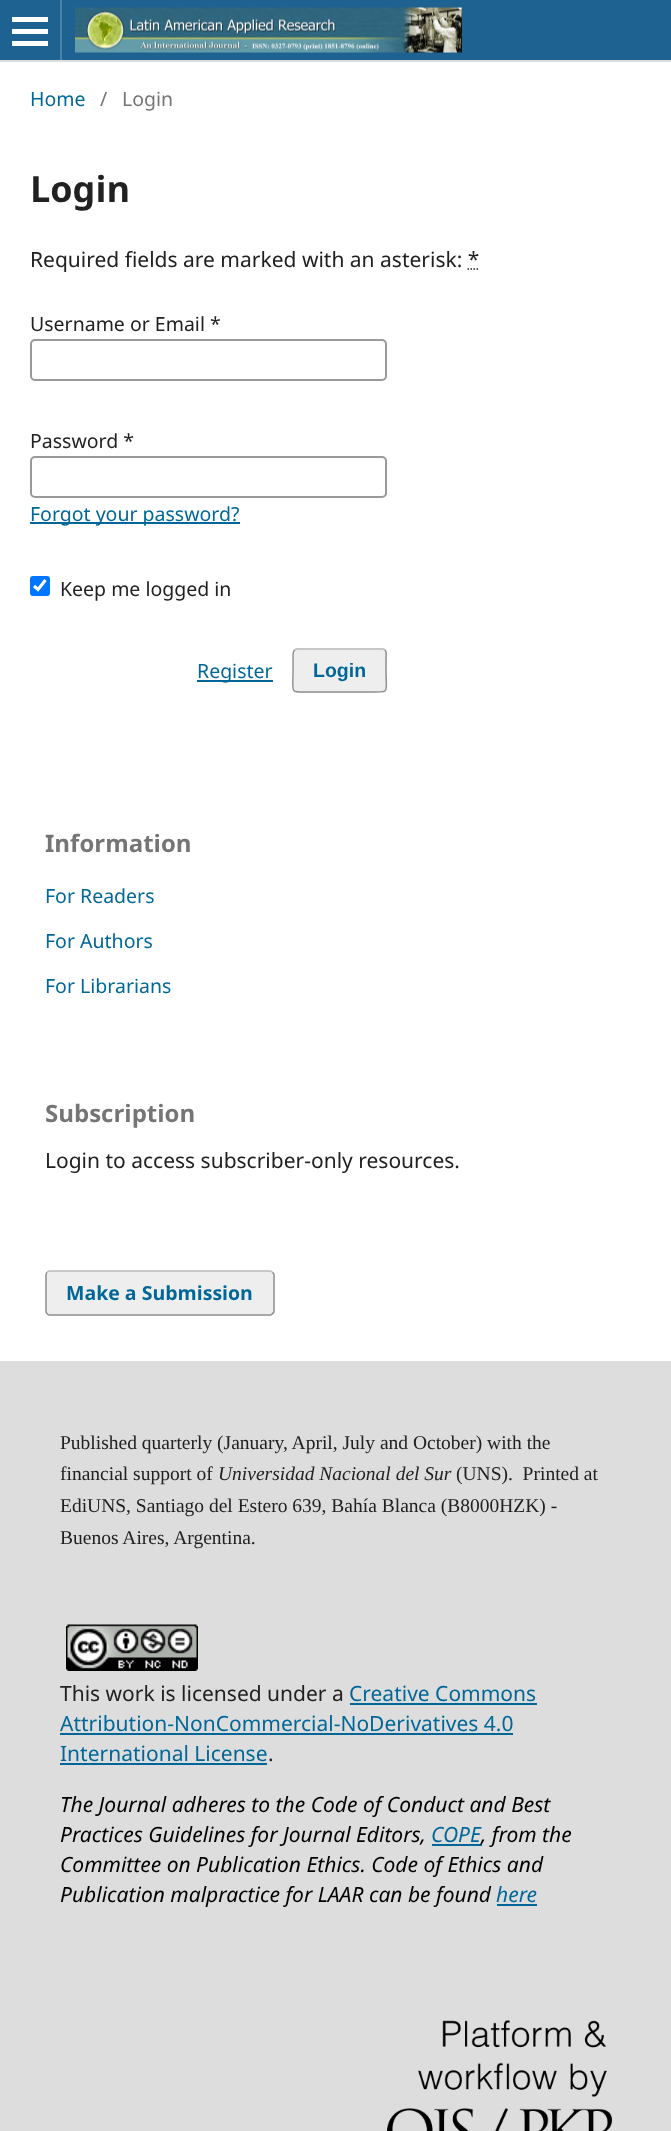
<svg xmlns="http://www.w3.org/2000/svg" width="671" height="2131">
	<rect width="100%" height="100%" fill="#FFFFFF" />
	<rect x="0" y="0" width="671" height="60" fill="#1E6292" />
	<rect x="0" y="60" width="671" height="2" fill="#DDDDDD" />
	<rect x="60" y="0" width="2" height="60" fill="#4B81A8" />
	<rect x="12" y="41" width="36" height="5" fill="#FFFFFF" />
	<rect x="12" y="17" width="36" height="5" fill="#FFFFFF" />
	<rect x="12" y="29" width="36" height="5" fill="#FFFFFF" />
	<image x="75" y="7" width="387" height="46" href="assets/img1.png" />
	<text x="30" y="106" font-family="Noto Sans" font-size="19.5" fill="#006798">Home</text>
	<g font-family="Noto Sans" font-size="19.5" fill="#757575">
		<text x="100" y="106">/</text>
		<text x="122" y="106">Login</text>
	</g>
	<text x="30" y="202" font-family="Noto Sans" font-size="36" font-weight="700" fill="#212121">Login</text>
	<text x="30" y="267" font-family="Noto Sans" font-size="21" fill="#212121">Required fields are marked with an asterisk: *</text>
	<path d="M467.5 269H479.5" fill="none" stroke="#212121" stroke-width="1.5" stroke-dasharray="1.5 1.5" />
	<text x="30" y="331" font-family="Noto Sans" font-size="19.5" fill="#212121">Username or Email *</text>
	<rect x="31" y="340" width="355" height="40" rx="4" fill="none" stroke="#999999" stroke-width="2" />
	<text x="30" y="448" font-family="Noto Sans" font-size="19.5" fill="#212121">Password *</text>
	<rect x="31" y="457" width="355" height="40" rx="4" fill="none" stroke="#999999" stroke-width="2" />
	<rect x="30" y="522" width="210" height="2" fill="#006798" />
	<text x="30" y="521" font-family="Noto Sans" font-size="19.5" fill="#006798">Forgot your password?</text>
	<rect x="30" y="576" width="20" height="20" rx="3" fill="#0075FF" />
	<path d="M34 586L38 589.5L45.5 580" fill="none" stroke="#FFFFFF" stroke-width="3.1" />
	<text x="60" y="596" font-family="Noto Sans" font-size="19.5" fill="#212121">Keep me logged in</text>
	<rect x="197" y="680" width="76" height="2" fill="#006798" />
	<text x="197" y="678" font-family="Noto Sans" font-size="19.5" fill="#006798">Register</text>
	<rect x="293" y="648" width="94" height="45" rx="5" fill="#EEEEEE" />
	<path d="M294.5 650L296.5 649H383L385 650" fill="none" stroke="#BBBBBB" stroke-width="1.5" />
	<path d="M385 650C387 652 386 656.5 386 658.5V670.5C386 694.5 391 692 368 692H311C288.5 692 293 694.5 293 670.5V658.5C293 656.5 292.5 652 294.5 650" fill="none" stroke="#000000" stroke-opacity="0.4" stroke-width="1.5" />
	<text x="313" y="677" font-family="Liberation Sans" font-size="19.5" font-weight="700" fill="#006798">Login</text>
	<text x="45" y="852" font-family="Noto Sans" font-size="24" font-weight="700" fill="#757575">Information</text>
	<g font-family="Noto Sans" font-size="19.5" fill="#006798">
		<text x="45" y="903">For Readers</text>
		<text x="45" y="948">For Authors</text>
		<text x="45" y="993">For Librarians</text>
	</g>
	<text x="45" y="1122" font-family="Noto Sans" font-size="24" font-weight="700" fill="#757575">Subscription</text>
	<text x="45" y="1168" font-family="Noto Sans" font-size="21" fill="#212121">Login to access subscriber-only resources.</text>
	<rect x="45" y="1271" width="230" height="45" rx="5" fill="#EEEEEE" />
	<path d="M47 1272.5C47.5 1271.5 48.5 1271 49.5 1271H270C271 1271 272 1271.5 272.5 1272.5" fill="none" stroke="#BBBBBB" stroke-width="1.5" />
	<path d="M272.5 1272.5C273.5 1273 274 1274 274 1275V1311C274 1312 273.5 1313 272.5 1313.5C272 1314.5 271 1315 270 1315H49.5C48.5 1315 47.5 1314.5 47 1313.5C46 1313 46 1312 46 1311V1275C46 1274 46 1273 47 1272.5" fill="none" stroke="#000000" stroke-opacity="0.4" stroke-width="1.5" />
	<text x="66" y="1300" font-family="Noto Sans" font-size="19.5" font-weight="700" fill="#006798">Make a Submission</text>
	<rect x="0" y="1361" width="671" height="770" fill="#DDDDDD" />
	<g font-family="Liberation Serif" font-size="19.5" fill="#212121">
		<text x="60" y="1449">Published quarterly (January, April, July and October) with the</text>
		<text x="60" y="1480">financial support of</text>
	</g>
	<text x="218" y="1480" font-family="Liberation Serif" font-size="19.5" font-style="italic" fill="#212121">Universidad Nacional del Sur</text>
	<g font-family="Liberation Serif" font-size="19.5" fill="#212121">
		<text x="456" y="1480" xml:space="preserve">(UNS).  Printed at</text>
		<text x="60" y="1512">EdiUNS, Santiago del Estero 639, Bahía Blanca (B8000HZK) -</text>
		<text x="60" y="1544">Buenos Aires, Argentina.</text>
	</g>
	<image x="66" y="1624" width="132" height="47" href="assets/img2.png" />
	<text x="60" y="1701" font-family="Noto Sans" font-size="21" fill="#212121">This work is licensed under a</text>
	<text x="349" y="1701" font-family="Noto Sans" font-size="21" fill="#006798">Creative Commons</text>
	<rect x="350" y="1703" width="187" height="2" fill="#006798" />
	<text x="60" y="1731" font-family="Noto Sans" font-size="21" fill="#006798">Attribution-NonCommercial-NoDerivatives 4.0</text>
	<rect x="60" y="1733" width="453" height="2" fill="#006798" />
	<text x="60" y="1761" font-family="Noto Sans" font-size="21" fill="#006798">International License</text>
	<rect x="60" y="1763" width="207" height="2" fill="#006798" />
	<text x="268" y="1761" font-family="Noto Sans" font-size="21" fill="#212121">.</text>
	<g font-family="Noto Sans" font-size="21" font-style="italic" fill="#000000">
		<text x="60" y="1812">The Journal adheres to the Code of Conduct and Best</text>
		<text x="60" y="1842">Practices Guidelines for Journal Editors,</text>
	</g>
	<text x="431" y="1842" font-family="Noto Sans" font-size="21" font-style="italic" fill="#006798">COPE</text>
	<rect x="432" y="1844" width="50" height="2" fill="#006798" />
	<g font-family="Noto Sans" font-size="21" font-style="italic" fill="#000000">
		<text x="481" y="1842">, from the</text>
		<text x="60" y="1872">Committee on Publication Ethics. Code of Ethics and</text>
		<text x="60" y="1902">Publication malpractice for LAAR can be found</text>
	</g>
	<text x="496" y="1902" font-family="Noto Sans" font-size="21" font-style="italic" fill="#006798">here</text>
	<rect x="497" y="1904" width="40" height="2" fill="#006798" />
	<image x="387" y="2020" width="225" height="111" href="assets/img3.png" />
</svg>
